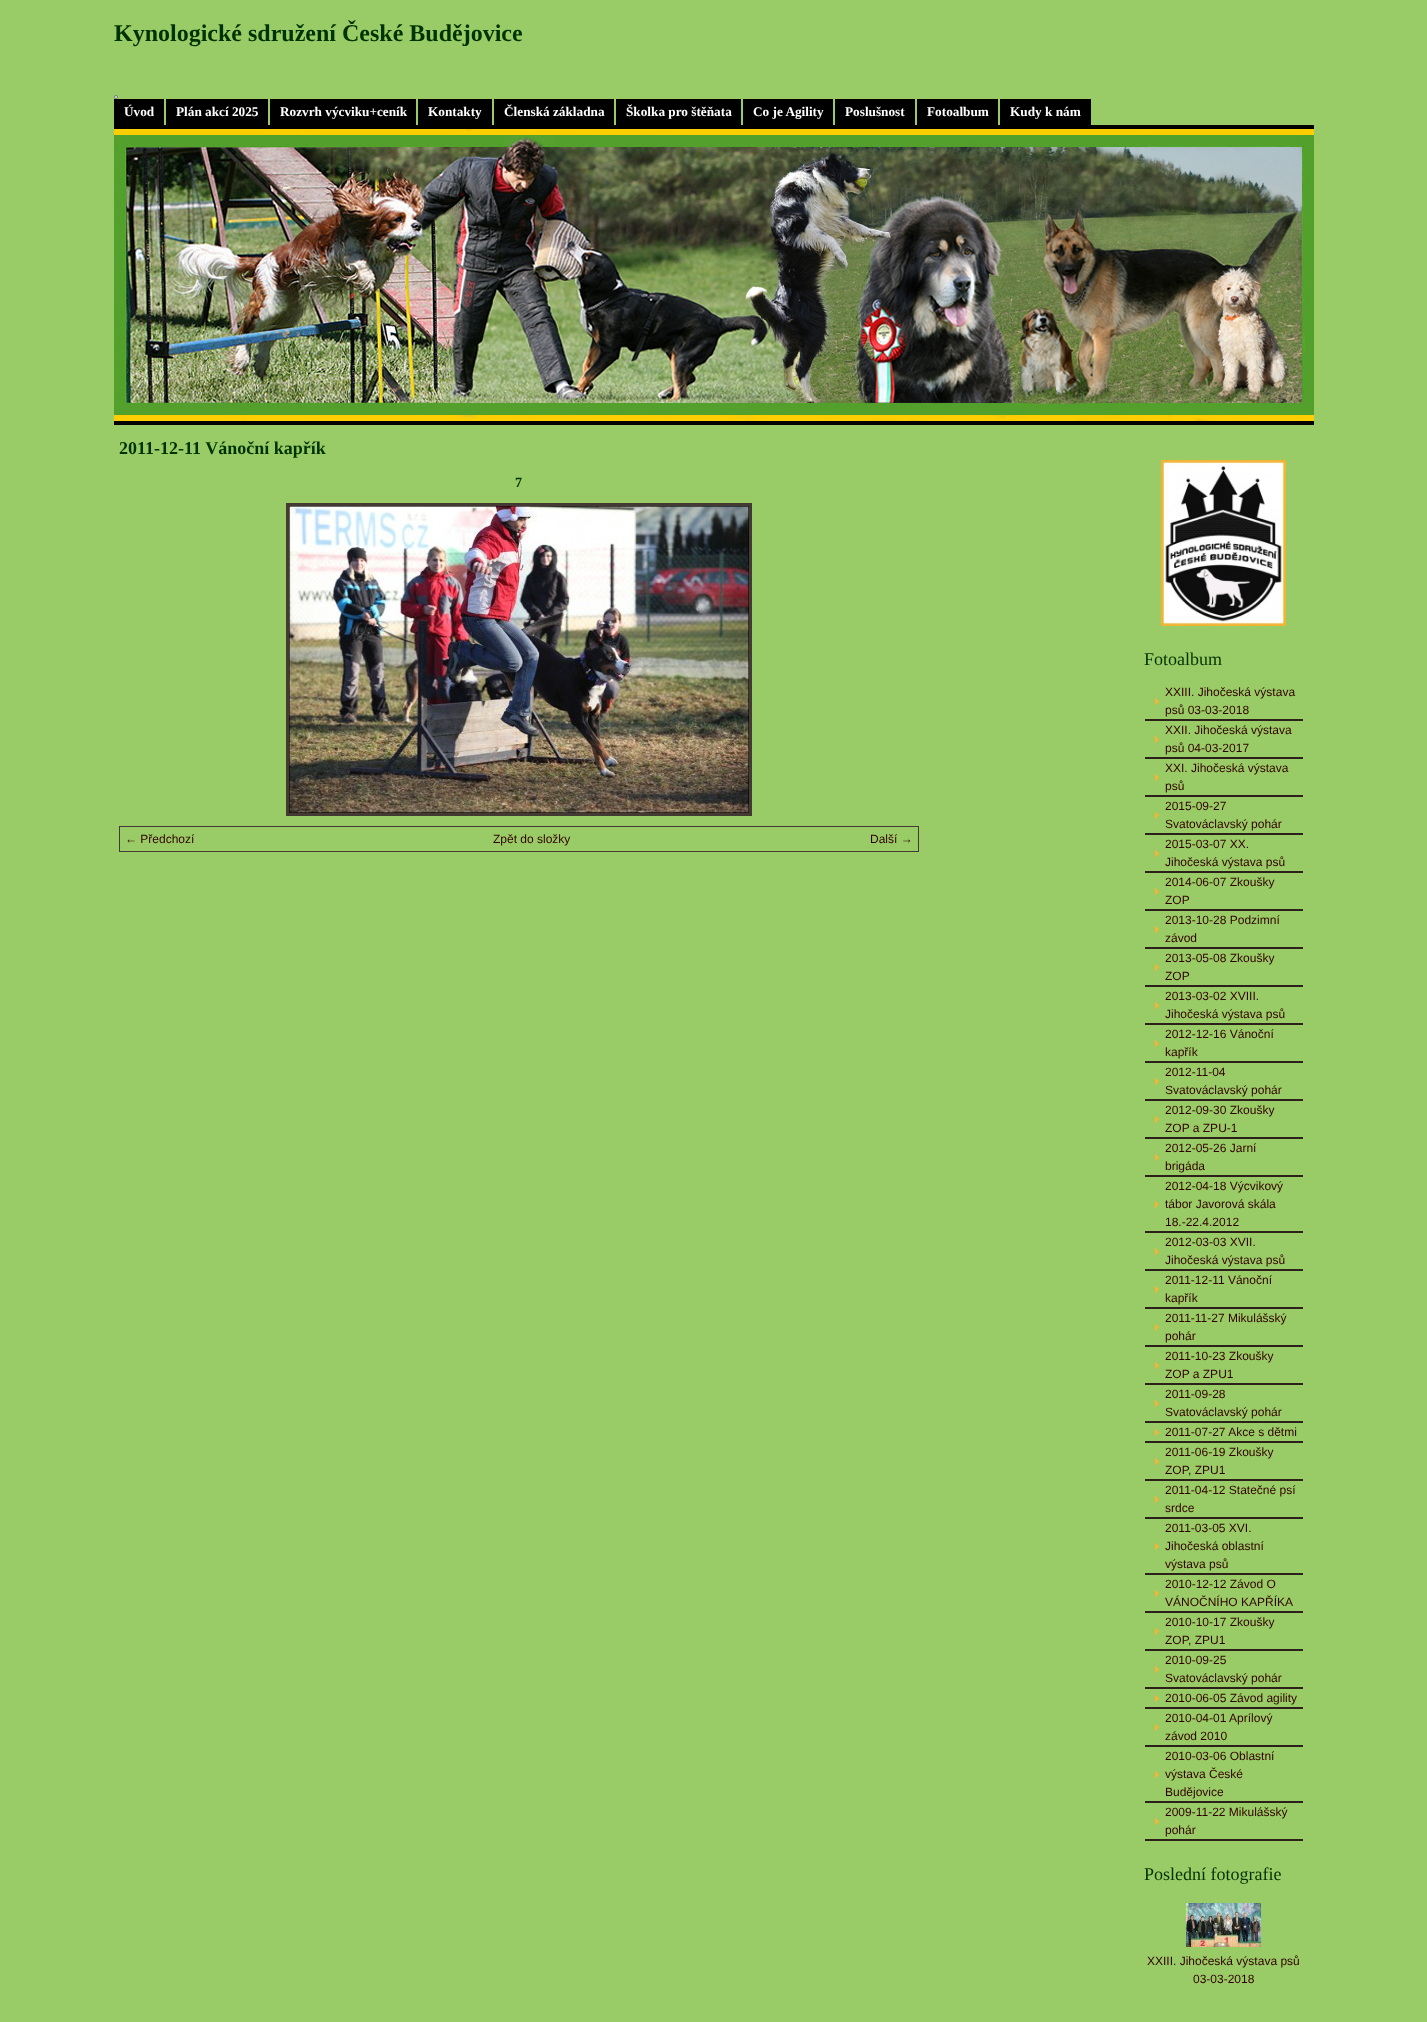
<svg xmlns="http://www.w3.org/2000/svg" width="1427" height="2022">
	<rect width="100%" height="100%" fill="#99CC66" />
	<rect x="114" y="125" width="1200" height="300" fill="#000000" />
	<image x="114" y="129" width="1200" height="292" href="assets/img1.png" />
	<text x="114" y="41" font-family="Liberation Serif" font-size="24" font-weight="700" fill="#003300">Kynologické sdružení České Budějovice</text>
	<rect x="114" y="99" width="50" height="26" fill="#000000" />
	<text x="124" y="116" font-family="Liberation Serif" font-size="13.25" font-weight="700" fill="#FFFFFF">Úvod</text>
	<rect x="166" y="99" width="102" height="26" fill="#000000" />
	<text x="176" y="116" font-family="Liberation Serif" font-size="13.25" font-weight="700" fill="#FFFFFF">Plán akcí 2025</text>
	<rect x="270" y="99" width="146" height="26" fill="#000000" />
	<text x="280" y="116" font-family="Liberation Serif" font-size="13.25" font-weight="700" fill="#FFFFFF">Rozvrh výcviku+ceník</text>
	<rect x="418" y="99" width="74" height="26" fill="#000000" />
	<text x="428" y="116" font-family="Liberation Serif" font-size="13.25" font-weight="700" fill="#FFFFFF">Kontakty</text>
	<rect x="494" y="99" width="120" height="26" fill="#000000" />
	<text x="504" y="116" font-family="Liberation Serif" font-size="13.25" font-weight="700" fill="#FFFFFF">Členská základna</text>
	<rect x="616" y="99" width="125" height="26" fill="#000000" />
	<text x="626" y="116" font-family="Liberation Serif" font-size="13.25" font-weight="700" fill="#FFFFFF">Školka pro štěňata</text>
	<rect x="743" y="99" width="90" height="26" fill="#000000" />
	<text x="753" y="116" font-family="Liberation Serif" font-size="13.25" font-weight="700" fill="#FFFFFF">Co je Agility</text>
	<rect x="835" y="99" width="80" height="26" fill="#000000" />
	<text x="845" y="116" font-family="Liberation Serif" font-size="13.25" font-weight="700" fill="#FFFFFF">Poslušnost</text>
	<rect x="917" y="99" width="81" height="26" fill="#000000" />
	<text x="927" y="116" font-family="Liberation Serif" font-size="13.25" font-weight="700" fill="#FFFFFF">Fotoalbum</text>
	<rect x="1000" y="99" width="91" height="26" fill="#000000" />
	<text x="1010" y="116" font-family="Liberation Serif" font-size="13.25" font-weight="700" fill="#FFFFFF">Kudy k nám</text>
	<text x="119" y="454" font-family="Liberation Serif" font-size="18" font-weight="700" fill="#003300">2011-12-11 Vánoční kapřík</text>
	<text x="515" y="487" font-family="Liberation Serif" font-size="14" font-weight="700" fill="#003300">7</text>
	<rect x="287.5" y="504.5" width="463" height="310" fill="none" stroke="#433A33" stroke-width="3" />
	<image x="289" y="506" width="460" height="307" href="assets/img2.png" />
	<rect x="119.5" y="826.5" width="799" height="25" fill="none" stroke="#433A33" />
	<g font-family="Liberation Sans" font-size="12" fill="#330000">
		<text x="125" y="843">← Předchozí</text>
		<text x="493" y="843">Zpět do složky</text>
		<text x="870" y="843">Další →</text>
	</g>
	<image x="1161" y="460" width="125" height="166" href="assets/img3.png" />
	<text x="1144" y="665" font-family="Liberation Serif" font-size="18" fill="#003300">Fotoalbum</text>
	<image x="1155" y="698" width="4" height="7" href="assets/img4.png" />
	<rect x="1145" y="719" width="158" height="2" fill="#2C201A" />
	<g font-family="Liberation Sans" font-size="12" fill="#330000">
		<text x="1165" y="696">XXIII. Jihočeská výstava</text>
		<text x="1165" y="714">psů 03-03-2018</text>
	</g>
	<image x="1155" y="736" width="4" height="7" href="assets/img4.png" />
	<rect x="1145" y="757" width="158" height="2" fill="#2C201A" />
	<g font-family="Liberation Sans" font-size="12" fill="#330000">
		<text x="1165" y="734">XXII. Jihočeská výstava</text>
		<text x="1165" y="752">psů 04-03-2017</text>
	</g>
	<image x="1155" y="774" width="4" height="7" href="assets/img4.png" />
	<rect x="1145" y="795" width="158" height="2" fill="#2C201A" />
	<g font-family="Liberation Sans" font-size="12" fill="#330000">
		<text x="1165" y="772">XXI. Jihočeská výstava</text>
		<text x="1165" y="790">psů</text>
	</g>
	<image x="1155" y="812" width="4" height="7" href="assets/img4.png" />
	<rect x="1145" y="833" width="158" height="2" fill="#2C201A" />
	<g font-family="Liberation Sans" font-size="12" fill="#330000">
		<text x="1165" y="810">2015-09-27</text>
		<text x="1165" y="828">Svatováclavský pohár</text>
	</g>
	<image x="1155" y="850" width="4" height="7" href="assets/img4.png" />
	<rect x="1145" y="871" width="158" height="2" fill="#2C201A" />
	<g font-family="Liberation Sans" font-size="12" fill="#330000">
		<text x="1165" y="848">2015-03-07 XX.</text>
		<text x="1165" y="866">Jihočeská výstava psů</text>
	</g>
	<image x="1155" y="888" width="4" height="7" href="assets/img4.png" />
	<rect x="1145" y="909" width="158" height="2" fill="#2C201A" />
	<g font-family="Liberation Sans" font-size="12" fill="#330000">
		<text x="1165" y="886">2014-06-07 Zkoušky</text>
		<text x="1165" y="904">ZOP</text>
	</g>
	<image x="1155" y="926" width="4" height="7" href="assets/img4.png" />
	<rect x="1145" y="947" width="158" height="2" fill="#2C201A" />
	<g font-family="Liberation Sans" font-size="12" fill="#330000">
		<text x="1165" y="924">2013-10-28 Podzimní</text>
		<text x="1165" y="942">závod</text>
	</g>
	<image x="1155" y="964" width="4" height="7" href="assets/img4.png" />
	<rect x="1145" y="985" width="158" height="2" fill="#2C201A" />
	<g font-family="Liberation Sans" font-size="12" fill="#330000">
		<text x="1165" y="962">2013-05-08 Zkoušky</text>
		<text x="1165" y="980">ZOP</text>
	</g>
	<image x="1155" y="1002" width="4" height="7" href="assets/img4.png" />
	<rect x="1145" y="1023" width="158" height="2" fill="#2C201A" />
	<g font-family="Liberation Sans" font-size="12" fill="#330000">
		<text x="1165" y="1000">2013-03-02 XVIII.</text>
		<text x="1165" y="1018">Jihočeská výstava psů</text>
	</g>
	<image x="1155" y="1040" width="4" height="7" href="assets/img4.png" />
	<rect x="1145" y="1061" width="158" height="2" fill="#2C201A" />
	<g font-family="Liberation Sans" font-size="12" fill="#330000">
		<text x="1165" y="1038">2012-12-16 Vánoční</text>
		<text x="1165" y="1056">kapřík</text>
	</g>
	<image x="1155" y="1078" width="4" height="7" href="assets/img4.png" />
	<rect x="1145" y="1099" width="158" height="2" fill="#2C201A" />
	<g font-family="Liberation Sans" font-size="12" fill="#330000">
		<text x="1165" y="1076">2012-11-04</text>
		<text x="1165" y="1094">Svatováclavský pohár</text>
	</g>
	<image x="1155" y="1116" width="4" height="7" href="assets/img4.png" />
	<rect x="1145" y="1137" width="158" height="2" fill="#2C201A" />
	<g font-family="Liberation Sans" font-size="12" fill="#330000">
		<text x="1165" y="1114">2012-09-30 Zkoušky</text>
		<text x="1165" y="1132">ZOP a ZPU-1</text>
	</g>
	<image x="1155" y="1154" width="4" height="7" href="assets/img4.png" />
	<rect x="1145" y="1175" width="158" height="2" fill="#2C201A" />
	<g font-family="Liberation Sans" font-size="12" fill="#330000">
		<text x="1165" y="1152">2012-05-26 Jarní</text>
		<text x="1165" y="1170">brigáda</text>
	</g>
	<image x="1155" y="1201" width="4" height="7" href="assets/img4.png" />
	<rect x="1145" y="1231" width="158" height="2" fill="#2C201A" />
	<g font-family="Liberation Sans" font-size="12" fill="#330000">
		<text x="1165" y="1190">2012-04-18 Výcvikový</text>
		<text x="1165" y="1208">tábor Javorová skála</text>
		<text x="1165" y="1226">18.-22.4.2012</text>
	</g>
	<image x="1155" y="1248" width="4" height="7" href="assets/img4.png" />
	<rect x="1145" y="1269" width="158" height="2" fill="#2C201A" />
	<g font-family="Liberation Sans" font-size="12" fill="#330000">
		<text x="1165" y="1246">2012-03-03 XVII.</text>
		<text x="1165" y="1264">Jihočeská výstava psů</text>
	</g>
	<image x="1155" y="1286" width="4" height="7" href="assets/img4.png" />
	<rect x="1145" y="1307" width="158" height="2" fill="#2C201A" />
	<g font-family="Liberation Sans" font-size="12" fill="#330000">
		<text x="1165" y="1284">2011-12-11 Vánoční</text>
		<text x="1165" y="1302">kapřík</text>
	</g>
	<image x="1155" y="1324" width="4" height="7" href="assets/img4.png" />
	<rect x="1145" y="1345" width="158" height="2" fill="#2C201A" />
	<g font-family="Liberation Sans" font-size="12" fill="#330000">
		<text x="1165" y="1322">2011-11-27 Mikulášský</text>
		<text x="1165" y="1340">pohár</text>
	</g>
	<image x="1155" y="1362" width="4" height="7" href="assets/img4.png" />
	<rect x="1145" y="1383" width="158" height="2" fill="#2C201A" />
	<g font-family="Liberation Sans" font-size="12" fill="#330000">
		<text x="1165" y="1360">2011-10-23 Zkoušky</text>
		<text x="1165" y="1378">ZOP a ZPU1</text>
	</g>
	<image x="1155" y="1400" width="4" height="7" href="assets/img4.png" />
	<rect x="1145" y="1421" width="158" height="2" fill="#2C201A" />
	<g font-family="Liberation Sans" font-size="12" fill="#330000">
		<text x="1165" y="1398">2011-09-28</text>
		<text x="1165" y="1416">Svatováclavský pohár</text>
	</g>
	<image x="1155" y="1429" width="4" height="7" href="assets/img4.png" />
	<rect x="1145" y="1441" width="158" height="2" fill="#2C201A" />
	<text x="1165" y="1436" font-family="Liberation Sans" font-size="12" fill="#330000">2011-07-27 Akce s dětmi</text>
	<image x="1155" y="1458" width="4" height="7" href="assets/img4.png" />
	<rect x="1145" y="1479" width="158" height="2" fill="#2C201A" />
	<g font-family="Liberation Sans" font-size="12" fill="#330000">
		<text x="1165" y="1456">2011-06-19 Zkoušky</text>
		<text x="1165" y="1474">ZOP, ZPU1</text>
	</g>
	<image x="1155" y="1496" width="4" height="7" href="assets/img4.png" />
	<rect x="1145" y="1517" width="158" height="2" fill="#2C201A" />
	<g font-family="Liberation Sans" font-size="12" fill="#330000">
		<text x="1165" y="1494">2011-04-12 Statečné psí</text>
		<text x="1165" y="1512">srdce</text>
	</g>
	<image x="1155" y="1543" width="4" height="7" href="assets/img4.png" />
	<rect x="1145" y="1573" width="158" height="2" fill="#2C201A" />
	<g font-family="Liberation Sans" font-size="12" fill="#330000">
		<text x="1165" y="1532">2011-03-05 XVI.</text>
		<text x="1165" y="1550">Jihočeská oblastní</text>
		<text x="1165" y="1568">výstava psů</text>
	</g>
	<image x="1155" y="1590" width="4" height="7" href="assets/img4.png" />
	<rect x="1145" y="1611" width="158" height="2" fill="#2C201A" />
	<g font-family="Liberation Sans" font-size="12" fill="#330000">
		<text x="1165" y="1588">2010-12-12 Závod O</text>
		<text x="1165" y="1606">VÁNOČNÍHO KAPŘÍKA</text>
	</g>
	<image x="1155" y="1628" width="4" height="7" href="assets/img4.png" />
	<rect x="1145" y="1649" width="158" height="2" fill="#2C201A" />
	<g font-family="Liberation Sans" font-size="12" fill="#330000">
		<text x="1165" y="1626">2010-10-17 Zkoušky</text>
		<text x="1165" y="1644">ZOP, ZPU1</text>
	</g>
	<image x="1155" y="1666" width="4" height="7" href="assets/img4.png" />
	<rect x="1145" y="1687" width="158" height="2" fill="#2C201A" />
	<g font-family="Liberation Sans" font-size="12" fill="#330000">
		<text x="1165" y="1664">2010-09-25</text>
		<text x="1165" y="1682">Svatováclavský pohár</text>
	</g>
	<image x="1155" y="1695" width="4" height="7" href="assets/img4.png" />
	<rect x="1145" y="1707" width="158" height="2" fill="#2C201A" />
	<text x="1165" y="1702" font-family="Liberation Sans" font-size="12" fill="#330000">2010-06-05 Závod agility</text>
	<image x="1155" y="1724" width="4" height="7" href="assets/img4.png" />
	<rect x="1145" y="1745" width="158" height="2" fill="#2C201A" />
	<g font-family="Liberation Sans" font-size="12" fill="#330000">
		<text x="1165" y="1722">2010-04-01 Aprílový</text>
		<text x="1165" y="1740">závod 2010</text>
	</g>
	<image x="1155" y="1771" width="4" height="7" href="assets/img4.png" />
	<rect x="1145" y="1801" width="158" height="2" fill="#2C201A" />
	<g font-family="Liberation Sans" font-size="12" fill="#330000">
		<text x="1165" y="1760">2010-03-06 Oblastní</text>
		<text x="1165" y="1778">výstava České</text>
		<text x="1165" y="1796">Budějovice</text>
	</g>
	<image x="1155" y="1818" width="4" height="7" href="assets/img4.png" />
	<rect x="1145" y="1839" width="158" height="2" fill="#2C201A" />
	<g font-family="Liberation Sans" font-size="12" fill="#330000">
		<text x="1165" y="1816">2009-11-22 Mikulášský</text>
		<text x="1165" y="1834">pohár</text>
	</g>
	<text x="1144" y="1880" font-family="Liberation Serif" font-size="18" fill="#003300">Poslední fotografie</text>
	<image x="1186" y="1903" width="75" height="44" href="assets/img5.png" />
	<g font-family="Liberation Sans" font-size="12" fill="#330000">
		<text x="1147" y="1965">XXIII. Jihočeská výstava psů</text>
		<text x="1193" y="1983">03-03-2018</text>
	</g>
	<circle cx="116" cy="97" r="1.5" fill="#EFEFEF" stroke="#767676" />
</svg>
